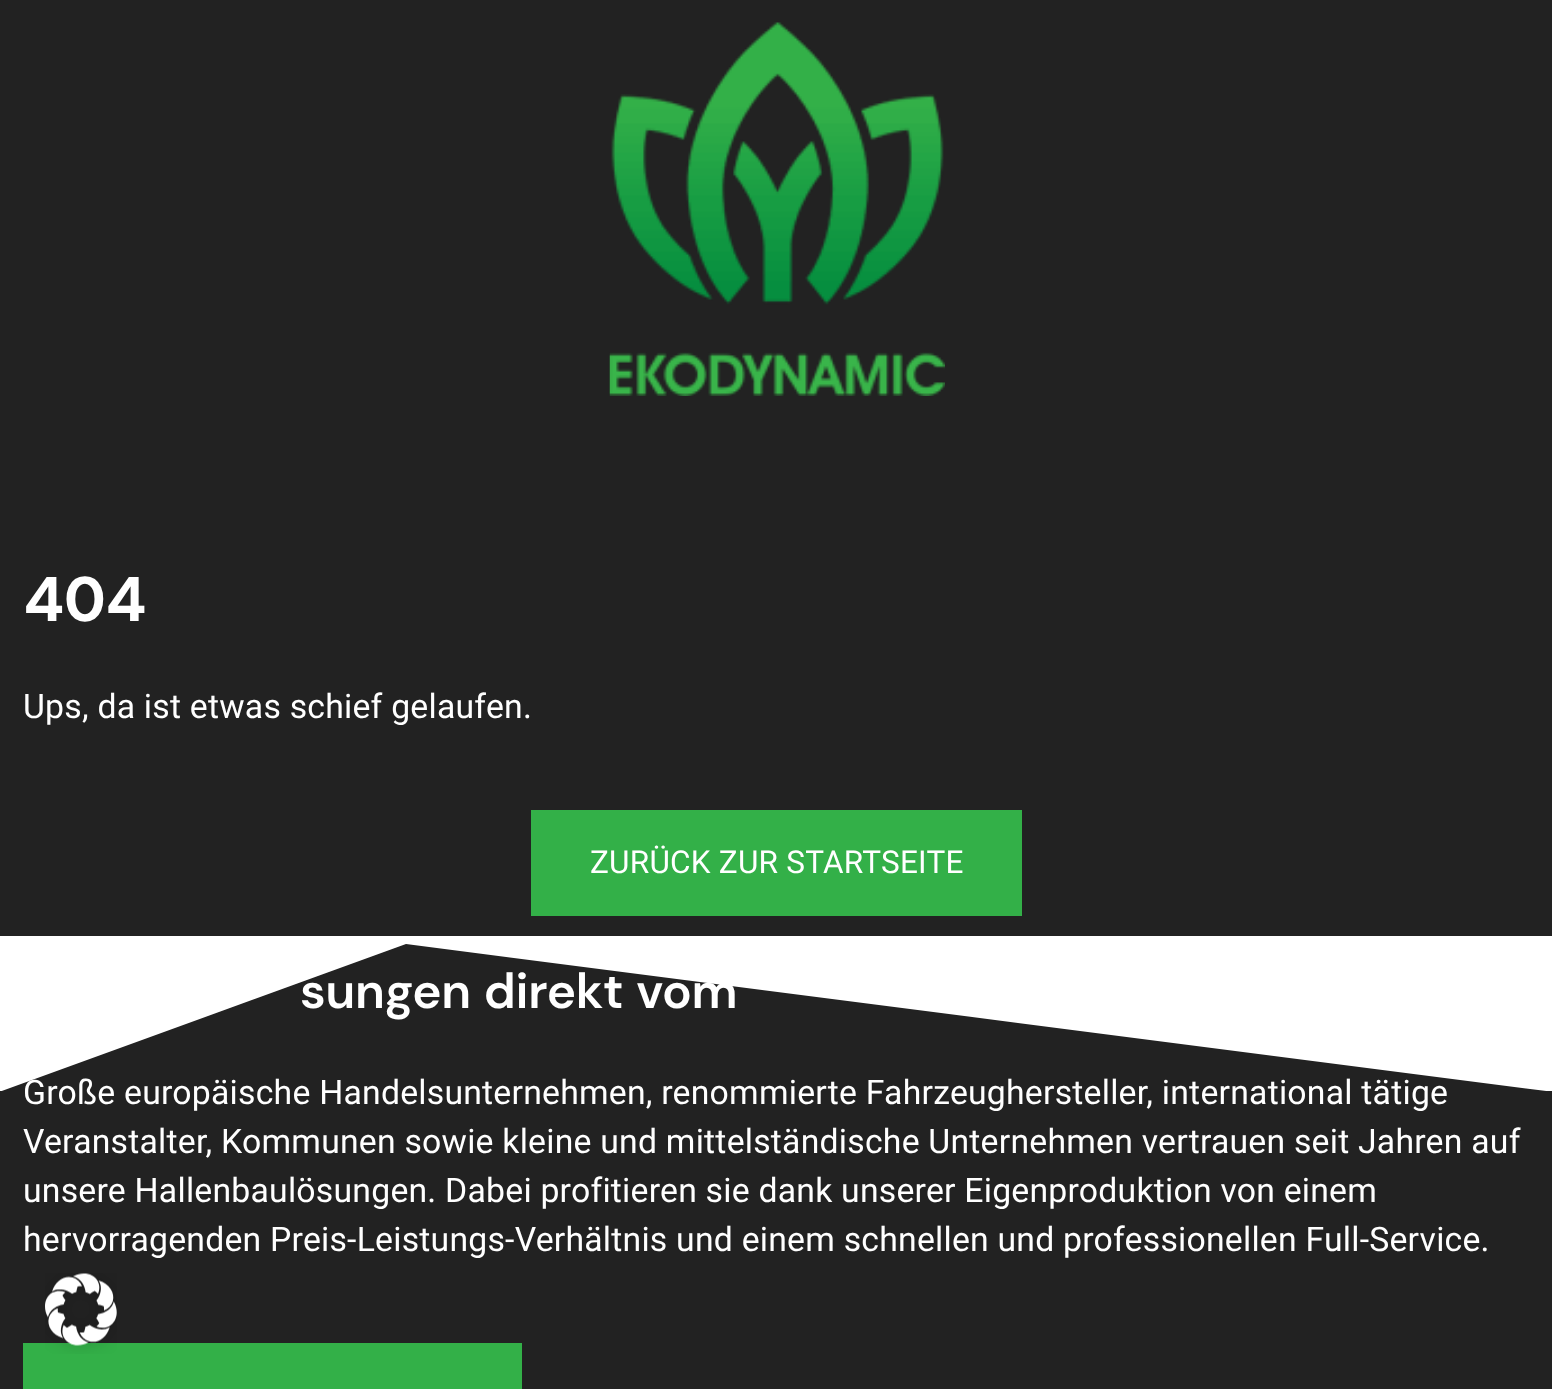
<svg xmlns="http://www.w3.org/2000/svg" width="1552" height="1389">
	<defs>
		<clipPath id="clip1"><rect x="0" y="936" width="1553" height="155" /></clipPath>
	</defs>
	<rect width="100%" height="100%" fill="#222222" />
	<image x="609" y="22" width="336" height="374" href="assets/img1.png" />
	<text x="23" y="621" font-family="DM Sans" font-size="63" font-weight="700" letter-spacing="-1" fill="#FFFFFF">404</text>
	<text x="23" y="718" font-family="Roboto" font-size="33.75" letter-spacing="0.23" fill="#FFFFFF">Ups, da ist etwas schief gelaufen.</text>
	<rect x="531" y="810" width="491" height="106" fill="#33B048" />
	<text x="590" y="873" font-family="Roboto" font-size="31.5" letter-spacing="0.23" fill="#FFFFFF">ZURÜCK ZUR STARTSEITE</text>
	<g clip-path="url(#clip1)">
		<path d="M406 944L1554 1092V936H-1V1092Z" fill="#FFFFFF" />
	</g>
	<text x="300" y="1008" word-spacing="1" font-family="DM Sans" font-size="49.5" font-weight="600" letter-spacing="-0.25" fill="#FFFFFF">sungen direkt vom</text>
	<g font-family="Roboto" font-size="33.75" letter-spacing="0.23" fill="#FFFFFF">
		<text x="23" y="1104">Große europäische Handelsunternehmen, renommierte Fahrzeughersteller, international tätige</text>
		<text x="23" y="1153">Veranstalter, Kommunen sowie kleine und mittelständische Unternehmen vertrauen seit Jahren auf</text>
		<text x="23" y="1202">unsere Hallenbaulösungen. Dabei profitieren sie dank unserer Eigenproduktion von einem</text>
		<text x="23" y="1251">hervorragenden Preis-Leistungs-Verhältnis und einem schnellen und professionellen Full-Service.</text>
	</g>
	<rect x="23" y="1343" width="499" height="46" fill="#33B048" />
	<image x="45" y="1273" width="72" height="81" href="assets/img2.png" />
</svg>
